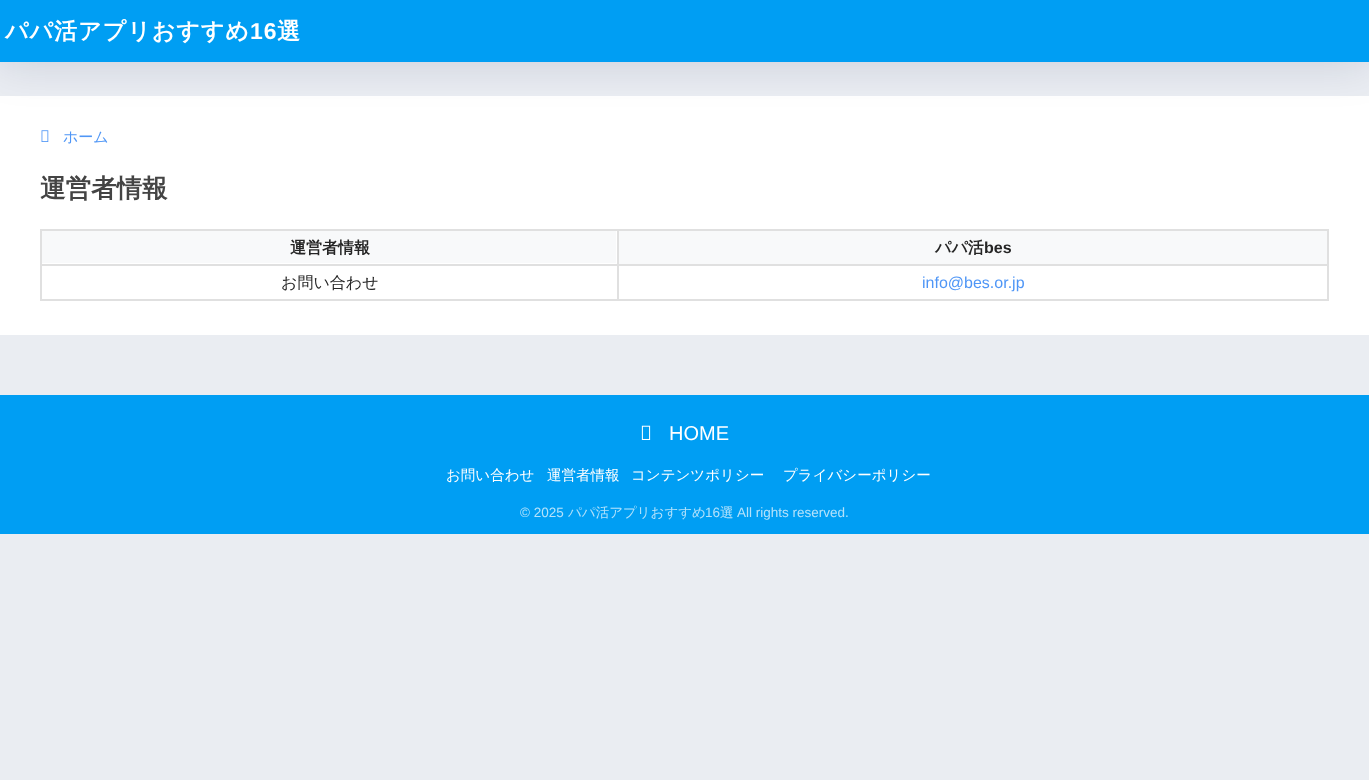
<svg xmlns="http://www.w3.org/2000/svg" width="1369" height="780">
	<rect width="100%" height="100%" fill="#EAEDF2" />
	<rect x="0" y="96" width="1369" height="239" fill="#FFFFFF" />
	<image x="41" y="130" width="8" height="12" href="assets/img1.png" />
	<rect x="0" y="0" width="1369" height="62" fill="#000C42" fill-opacity="0.15" filter="blur(22.5px)" />
	<rect x="0" y="0" width="1369" height="62" fill="#009EF3" />
	<text x="5" y="39" font-family="WenQuanYi Zen Hei" font-size="23" font-weight="700" letter-spacing="1" fill="#FFFFFF">パパ活アプリおすすめ</text>
	<text x="250" y="39" font-family="Liberation Sans" font-size="23" font-weight="700" letter-spacing="1" fill="#FFFFFF">16</text>
	<text x="277" y="39" font-family="WenQuanYi Zen Hei" font-size="23" font-weight="700" letter-spacing="1" fill="#FFFFFF">選</text>
	<text x="63" y="142" font-family="WenQuanYi Zen Hei" font-size="15" font-weight="500" fill="#4F96F6">ホーム</text>
	<text x="40" y="197" font-family="WenQuanYi Zen Hei" font-size="25.5" font-weight="700" fill="#444444">運営者情報</text>
	<rect x="40" y="229" width="1289" height="2" fill="#E0E0E0" />
	<rect x="1327" y="229" width="2" height="72" fill="#E0E0E0" />
	<rect x="40" y="299" width="1289" height="2" fill="#E0E0E0" />
	<rect x="40" y="229" width="2" height="72" fill="#E0E0E0" />
	<rect x="40" y="264" width="1289" height="2" fill="#E0E0E0" />
	<rect x="42" y="231" width="574" height="32" fill="#F8F9FA" />
	<text x="290" y="253" font-family="WenQuanYi Zen Hei" font-size="16" font-weight="700" fill="#252525">運営者情報</text>
	<rect x="619" y="231" width="708" height="33" fill="#F8F9FA" />
	<text x="935" y="253" font-family="WenQuanYi Zen Hei" font-size="16" font-weight="700" fill="#252525">パパ活</text>
	<text x="984" y="253" font-family="Liberation Sans" font-size="16" font-weight="700" fill="#252525">bes</text>
	<rect x="617" y="229" width="2" height="72" fill="#E0E0E0" />
	<text x="281" y="288" font-family="WenQuanYi Zen Hei" font-size="16" font-weight="500" fill="#252525">お問い合わせ</text>
	<text x="922" y="288" font-family="Liberation Sans" font-size="16" fill="#4F96F6">info@bes.or.jp</text>
	<rect x="0" y="395" width="1369" height="139" fill="#009EF3" />
	<image x="641" y="425" width="10" height="15" href="assets/img2.png" />
	<text x="669" y="440" font-family="Liberation Sans" font-size="20" fill="#FFFFFF">HOME</text>
	<g font-family="WenQuanYi Zen Hei" font-size="14.5" font-weight="500" fill="#FFFFFF">
		<text x="446" y="480">お問い合わせ</text>
		<text x="547" y="480">運営者情報</text>
		<text x="631" y="480">コンテンツポリシー</text>
		<text x="783" y="480">プライバシーポリシー</text>
	</g>
	<text x="520" y="517" font-family="Liberation Sans" font-size="13.5" fill="#B3E2FB">© 2025</text>
	<text x="568" y="517" font-family="WenQuanYi Zen Hei" font-size="13.5" font-weight="500" fill="#B3E2FB">パパ活アプリおすすめ</text>
	<text x="705" y="517" font-family="Liberation Sans" font-size="13.5" fill="#B3E2FB">16</text>
	<text x="720" y="517" font-family="WenQuanYi Zen Hei" font-size="13.5" font-weight="500" fill="#B3E2FB">選</text>
	<text x="737" y="517" font-family="Liberation Sans" font-size="13.5" fill="#B3E2FB">All rights reserved.</text>
</svg>
